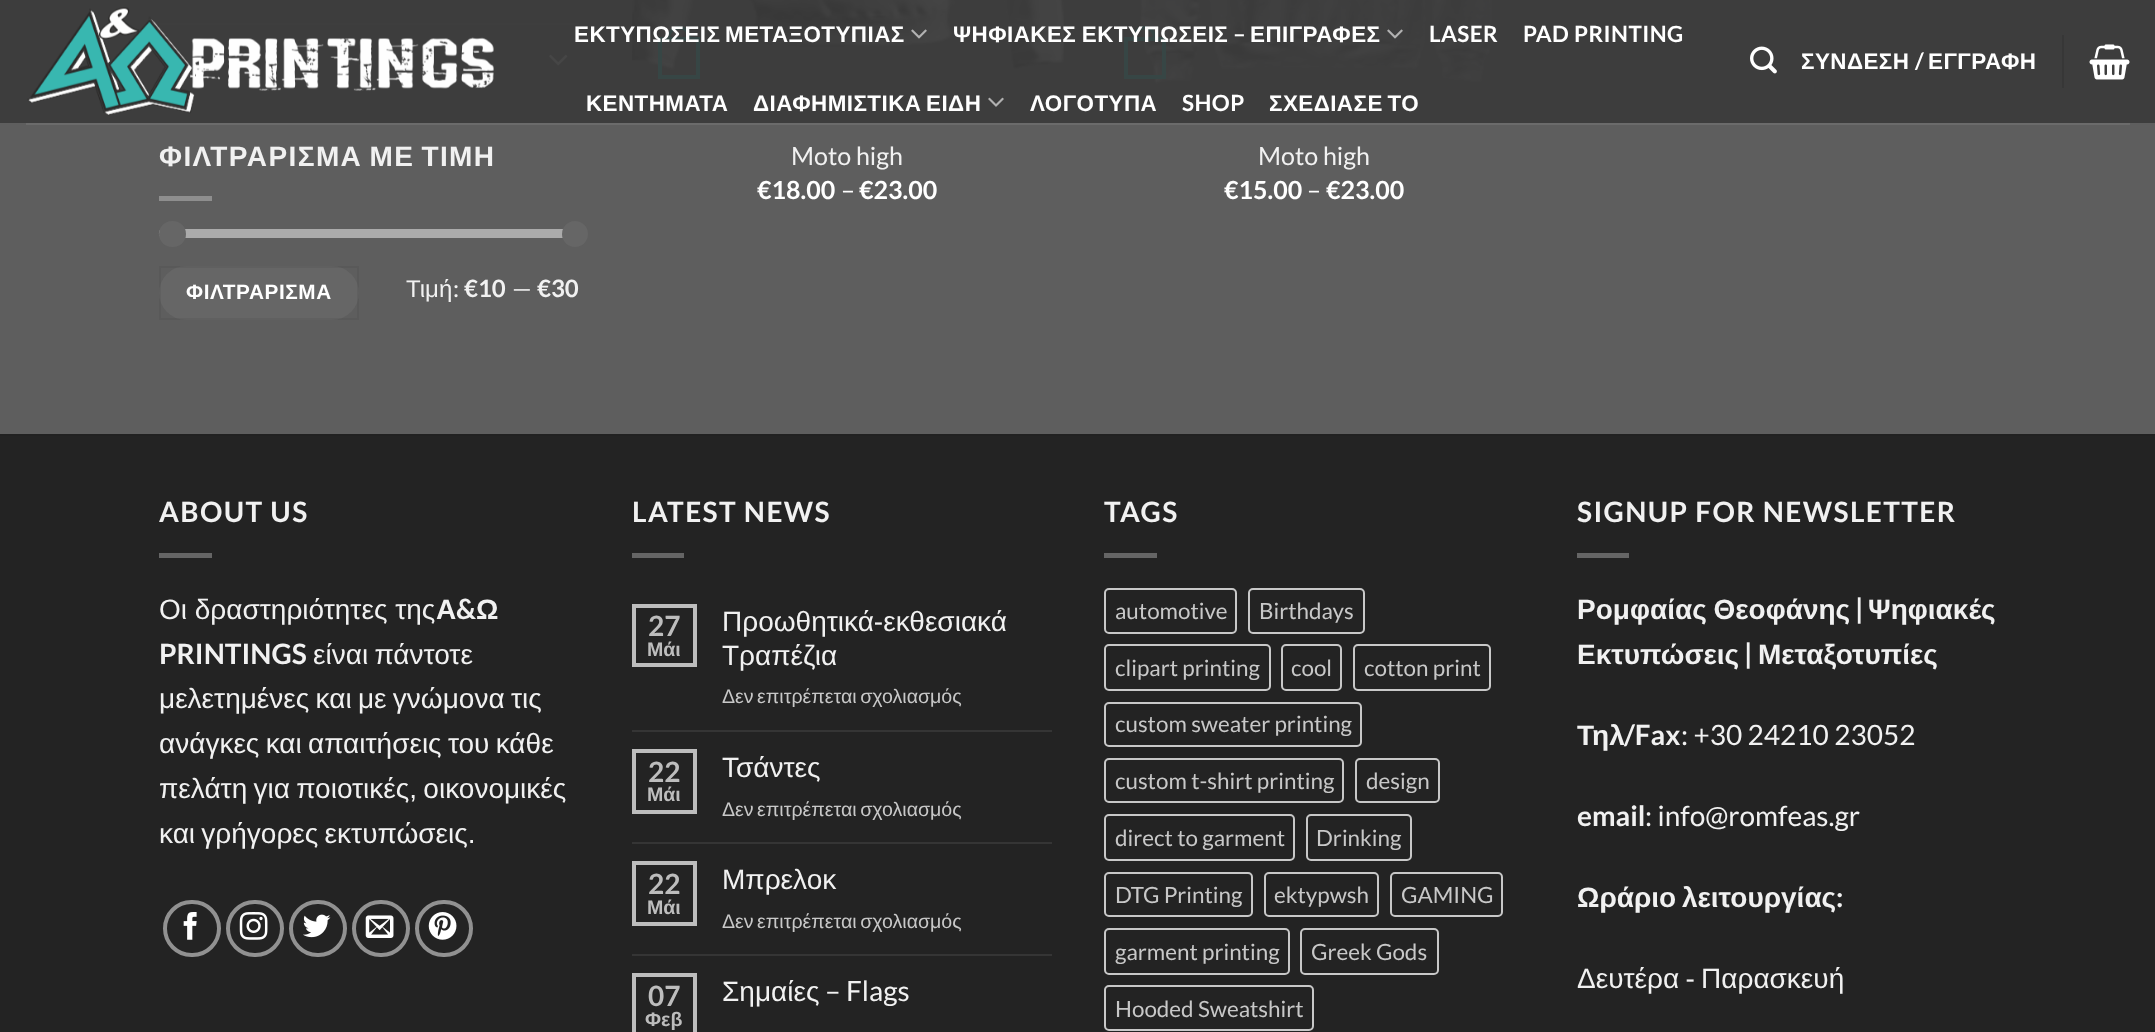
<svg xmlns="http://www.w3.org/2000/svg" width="2155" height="1032">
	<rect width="100%" height="100%" fill="#5E5E5E" />
	<rect x="159" y="23" width="420" height="2" fill="#6B6B6B" />
	<image x="549" y="54" width="19" height="12" href="assets/img7.png" />
	<image x="632" y="0" width="432" height="70" href="assets/img8.png" />
	<rect x="660" y="39" width="38" height="38" fill="none" stroke="#22BDAD" stroke-opacity="0.95" stroke-width="4" />
	<path d="M679 26C687.5 26 691 32.5 691 40H667C667 32.5 670.5 26 679 26ZM679 29.5C685.5 29.5 688 34.5 688 40H670C670 34.5 672.5 29.5 679 29.5Z" fill="#22BDAD" fill-opacity="0.95" fill-rule="evenodd" />
	<image x="1139" y="0" width="354" height="84" href="assets/img9.png" />
	<rect x="1126" y="39" width="38" height="38" fill="none" stroke="#22BDAD" stroke-opacity="0.95" stroke-width="4" />
	<path d="M1144.5 26C1153 26 1157 32.5 1157 40H1132C1132 32.5 1136 26 1144.5 26ZM1144.5 29.5C1151 29.5 1153 34.5 1153 40H1136C1136 34.5 1138 29.5 1144.5 29.5Z" fill="#22BDAD" fill-opacity="0.95" fill-rule="evenodd" />
	<rect x="0" y="0" width="2155" height="123" fill="#3A3A3A" fill-opacity="0.9" />
	<image x="27" y="7" width="467" height="109" href="assets/img1.png" />
	<text x="574" y="42" word-spacing="-2" font-family="Liberation Sans" font-size="22.4" font-weight="700" letter-spacing="0.45" fill="#FFFFFF">ΕΚΤΥΠΩΣΕΙΣ ΜΕΤΑΞΟΤΥΠΙΑΣ</text>
	<image x="911" y="29" width="16" height="10" href="assets/img2.png" />
	<text x="953" y="42" word-spacing="-1" font-family="Liberation Sans" font-size="22.4" font-weight="700" letter-spacing="0.45" fill="#FFFFFF">ΨΗΦΙΑΚΕΣ ΕΚΤΥΠΩΣΕΙΣ</text>
	<text x="1233" y="42" font-family="Lato" font-size="22.4" font-weight="700" letter-spacing="0.45" fill="#FFFFFF">–</text>
	<text x="1250" y="42" font-family="Liberation Sans" font-size="22.4" font-weight="700" letter-spacing="0.45" fill="#FFFFFF">ΕΠΙΓΡΑΦΕΣ</text>
	<image x="1387" y="29" width="16" height="10" href="assets/img3.png" />
	<g font-family="Lato" font-size="22.4" font-weight="700" letter-spacing="0.45" fill="#FFFFFF">
		<text x="1429" y="42">LASER</text>
		<text x="1523" y="42">PAD PRINTING</text>
	</g>
	<g font-family="Liberation Sans" font-size="22.4" font-weight="700" letter-spacing="0.45" fill="#FFFFFF">
		<text x="586" y="111">ΚΕΝΤΗΜΑΤΑ</text>
		<text x="753" y="111" word-spacing="-2">ΔΙΑΦΗΜΙΣΤΙΚΑ ΕΙΔΗ</text>
	</g>
	<image x="988" y="97" width="16" height="10" href="assets/img4.png" />
	<text x="1030" y="111" font-family="Liberation Sans" font-size="22.4" font-weight="700" letter-spacing="0.45" fill="#FFFFFF">ΛΟΓΟΤΥΠΑ</text>
	<text x="1182" y="111" font-family="Lato" font-size="22.4" font-weight="700" letter-spacing="0.45" fill="#FFFFFF">SHOP</text>
	<text x="1269" y="111" word-spacing="-2" font-family="Liberation Sans" font-size="22.4" font-weight="700" letter-spacing="0.45" fill="#FFFFFF">ΣΧΕΔΙΑΣΕ ΤΟ</text>
	<image x="1750" y="46" width="27" height="28" href="assets/img5.png" />
	<text x="1801" y="69" font-family="Liberation Sans" font-size="22.4" font-weight="700" letter-spacing="0.45" fill="#FFFFFF">ΣΥΝΔΕΣΗ</text>
	<text x="1915" y="69" font-family="Lato" font-size="22.4" font-weight="700" letter-spacing="0.45" fill="#FFFFFF">/</text>
	<text x="1928" y="69" font-family="Liberation Sans" font-size="22.4" font-weight="700" letter-spacing="0.45" fill="#FFFFFF">ΕΓΓΡΑΦΗ</text>
	<rect x="2062" y="35" width="2" height="53" fill="#373737" />
	<image x="2089" y="44" width="41" height="36" href="assets/img6.png" />
	<rect x="26" y="123" width="2104" height="2" fill="#E5E5E5" fill-opacity="0.1" />
	<text x="159" y="166" word-spacing="-2" font-family="Liberation Sans" font-size="28" font-weight="700" letter-spacing="1.4" fill="#F1F1F1">ΦΙΛΤΡΑΡΙΣΜΑ ΜΕ ΤΙΜΗ</text>
	<rect x="159" y="196" width="53" height="5" fill="#8E8E8E" />
	<rect x="159" y="229" width="420" height="9" rx="4.5" fill="#F1F1F1" />
	<rect x="159" y="229" width="420" height="9" rx="4.5" fill="#666666" fill-opacity="0.5" />
	<rect x="159" y="221" width="27" height="26" rx="13" fill="#666666" />
	<circle cx="575" cy="234" r="13" fill="#666666" />
	<rect x="159" y="266" width="200" height="54" rx="27" fill="#666666" />
	<rect x="160" y="267" width="198" height="52" fill="none" stroke="#000000" stroke-opacity="0.05" stroke-width="2" />
	<text x="186" y="299" font-family="Liberation Sans" font-size="20.75" font-weight="700" letter-spacing="0.6" fill="#FFFFFF">ΦΙΛΤΡΑΡΙΣΜΑ</text>
	<text x="406" y="297" font-family="Liberation Sans" font-size="24" fill="#F1F1F1">Τιμή</text>
	<text x="453" y="297" font-family="Lato" font-size="24" fill="#F1F1F1">:</text>
	<text x="464" y="297" font-family="Lato" font-size="24" font-weight="700" fill="#F1F1F1">€10</text>
	<text x="512" y="297" font-family="Lato" font-size="24" fill="#F1F1F1">—</text>
	<text x="537" y="297" font-family="Lato" font-size="24" font-weight="700" fill="#F1F1F1">€30</text>
	<text x="791" y="165" font-family="Lato" font-size="25" fill="#F1F1F1">Moto high</text>
	<text x="757" y="199" font-family="Lato" font-size="25" font-weight="700" fill="#FFFFFF">€18.00</text>
	<text x="841" y="199" font-family="Lato" font-size="25" fill="#FFFFFF">–</text>
	<text x="859" y="199" font-family="Lato" font-size="25" font-weight="700" fill="#FFFFFF">€23.00</text>
	<text x="1258" y="165" font-family="Lato" font-size="25" fill="#F1F1F1">Moto high</text>
	<text x="1224" y="199" font-family="Lato" font-size="25" font-weight="700" fill="#FFFFFF">€15.00</text>
	<text x="1307" y="199" font-family="Lato" font-size="25" fill="#FFFFFF">–</text>
	<text x="1326" y="199" font-family="Lato" font-size="25" font-weight="700" fill="#FFFFFF">€23.00</text>
	<rect x="0" y="436" width="2155" height="596" fill="#232323" />
	<rect x="0" y="434" width="2155" height="2" fill="#212121" />
	<text x="159" y="522" font-family="Lato" font-size="28" font-weight="700" letter-spacing="1.4" fill="#F1F1F1">ABOUT US</text>
	<rect x="159" y="553" width="53" height="5" fill="#656565" />
	<text x="159" y="619" font-family="Liberation Sans" font-size="28" fill="#F1F1F1">Οι δραστηριότητες της</text>
	<text x="436" y="619" font-family="Liberation Sans" font-size="28" font-weight="700" fill="#F1F1F1">Α</text>
	<text x="456" y="619" font-family="Lato" font-size="28" font-weight="700" fill="#F1F1F1">&amp;</text>
	<text x="476" y="619" font-family="Liberation Sans" font-size="28" font-weight="700" fill="#F1F1F1">Ω</text>
	<text x="159" y="664" font-family="Lato" font-size="28" font-weight="700" fill="#F1F1F1">PRINTINGS</text>
	<g font-family="Liberation Sans" font-size="28" fill="#F1F1F1">
		<text x="313" y="664" word-spacing="-1.5">είναι πάντοτε</text>
		<text x="159" y="708" word-spacing="-1.5">μελετημένες και με γνώμονα τις</text>
		<text x="159" y="753" word-spacing="-1.5">ανάγκες και απαιτήσεις του κάθε</text>
		<text x="159" y="798" word-spacing="-1.5">πελάτη για ποιοτικές, οικονομικές</text>
		<text x="159" y="843" word-spacing="-1.5">και γρήγορες εκτυπώσεις.</text>
	</g>
	<rect x="165" y="902" width="54" height="53" rx="26.5" fill="none" stroke="#919191" stroke-width="4" />
	<image x="183" y="912" width="14" height="28" href="assets/img10.png" />
	<rect x="228" y="902" width="54" height="53" rx="26.5" fill="none" stroke="#919191" stroke-width="4" />
	<image x="239" y="912" width="29" height="28" href="assets/img11.png" />
	<rect x="291" y="902" width="54" height="53" rx="26.5" fill="none" stroke="#919191" stroke-width="4" />
	<image x="303" y="914" width="28" height="24" href="assets/img12.png" />
	<rect x="354" y="902" width="54" height="53" rx="26.5" fill="none" stroke="#919191" stroke-width="4" />
	<image x="365" y="915" width="29" height="23" href="assets/img13.png" />
	<rect x="417" y="902" width="54" height="53" rx="26.5" fill="none" stroke="#919191" stroke-width="4" />
	<image x="428" y="912" width="29" height="28" href="assets/img14.png" />
	<text x="632" y="522" font-family="Lato" font-size="28" font-weight="700" letter-spacing="1.4" fill="#F1F1F1">LATEST NEWS</text>
	<rect x="632" y="553" width="52" height="5" fill="#656565" />
	<rect x="634" y="606" width="61" height="59" fill="none" stroke="#BDBDBD" stroke-width="4" />
	<text x="648" y="636" font-family="Lato" font-size="28" font-weight="700" fill="#BDBDBD">27</text>
	<text x="647" y="656" font-family="Liberation Sans" font-size="19.6" font-weight="700" fill="#BDBDBD">Μάι</text>
	<g font-family="Liberation Sans" font-size="28" fill="#F1F1F1">
		<text x="722" y="631">Προωθητικά-εκθεσιακά</text>
		<text x="722" y="665">Τραπέζια</text>
	</g>
	<text x="722" y="703" word-spacing="-2" font-family="Liberation Sans" font-size="19.6" fill="#C8C8C8">Δεν επιτρέπεται σχολιασμός</text>
	<rect x="632" y="730" width="420" height="2" fill="#353535" />
	<rect x="634" y="751" width="61" height="61" fill="none" stroke="#BDBDBD" stroke-width="4" />
	<text x="648" y="782" font-family="Lato" font-size="28" font-weight="700" fill="#BDBDBD">22</text>
	<text x="647" y="801" font-family="Liberation Sans" font-size="19.6" font-weight="700" fill="#BDBDBD">Μάι</text>
	<text x="722" y="777" font-family="Liberation Sans" font-size="28" fill="#F1F1F1">Τσάντες</text>
	<text x="722" y="816" word-spacing="-2" font-family="Liberation Sans" font-size="19.6" fill="#C8C8C8">Δεν επιτρέπεται σχολιασμός</text>
	<rect x="632" y="842" width="420" height="2" fill="#353535" />
	<rect x="634" y="863" width="61" height="61" fill="none" stroke="#BDBDBD" stroke-width="4" />
	<text x="648" y="894" font-family="Lato" font-size="28" font-weight="700" fill="#BDBDBD">22</text>
	<text x="647" y="914" font-family="Liberation Sans" font-size="19.6" font-weight="700" fill="#BDBDBD">Μάι</text>
	<text x="722" y="889" font-family="Liberation Sans" font-size="28" fill="#F1F1F1">Μπρελοκ</text>
	<text x="722" y="928" word-spacing="-2" font-family="Liberation Sans" font-size="19.6" fill="#C8C8C8">Δεν επιτρέπεται σχολιασμός</text>
	<rect x="632" y="954" width="420" height="2" fill="#353535" />
	<rect x="634" y="975" width="61" height="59" fill="none" stroke="#BDBDBD" stroke-width="4" />
	<text x="648" y="1006" font-family="Lato" font-size="28" font-weight="700" fill="#BDBDBD">07</text>
	<text x="645" y="1026" font-family="Liberation Sans" font-size="19.6" font-weight="700" fill="#BDBDBD">Φεβ</text>
	<text x="722" y="1001" font-family="Liberation Sans" font-size="28" fill="#F1F1F1">Σημαίες</text>
	<text x="825" y="1001" font-family="Lato" font-size="28" fill="#F1F1F1">– Flags</text>
	<text x="1104" y="522" font-family="Lato" font-size="28" font-weight="700" letter-spacing="1.4" fill="#F1F1F1">TAGS</text>
	<rect x="1104" y="553" width="53" height="5" fill="#656565" />
	<rect x="1105" y="589" width="131" height="44" rx="4" fill="none" stroke="#C8C8C8" stroke-width="2" />
	<text x="1115" y="619" font-family="Lato" font-size="22.4" fill="#C8C8C8">automotive</text>
	<rect x="1249" y="589" width="115" height="44" rx="4" fill="none" stroke="#C8C8C8" stroke-width="2" />
	<text x="1259" y="619" font-family="Lato" font-size="22.4" fill="#C8C8C8">Birthdays</text>
	<rect x="1105" y="645" width="165" height="45" rx="4" fill="none" stroke="#C8C8C8" stroke-width="2" />
	<text x="1115" y="676" font-family="Lato" font-size="22.4" fill="#C8C8C8">clipart printing</text>
	<rect x="1282" y="645" width="59" height="45" rx="4" fill="none" stroke="#C8C8C8" stroke-width="2" />
	<text x="1291" y="676" font-family="Lato" font-size="22.4" fill="#C8C8C8">cool</text>
	<rect x="1354" y="645" width="136" height="45" rx="4" fill="none" stroke="#C8C8C8" stroke-width="2" />
	<text x="1364" y="676" font-family="Lato" font-size="22.4" fill="#C8C8C8">cotton print</text>
	<rect x="1105" y="703" width="256" height="43" rx="4" fill="none" stroke="#C8C8C8" stroke-width="2" />
	<text x="1115" y="732" font-family="Lato" font-size="22.4" fill="#C8C8C8">custom sweater printing</text>
	<rect x="1105" y="759" width="238" height="43" rx="4" fill="none" stroke="#C8C8C8" stroke-width="2" />
	<text x="1115" y="789" font-family="Lato" font-size="22.4" fill="#C8C8C8">custom t-shirt printing</text>
	<rect x="1356" y="759" width="83" height="43" rx="4" fill="none" stroke="#C8C8C8" stroke-width="2" />
	<text x="1366" y="789" font-family="Lato" font-size="22.4" fill="#C8C8C8">design</text>
	<rect x="1105" y="815" width="189" height="45" rx="4" fill="none" stroke="#C8C8C8" stroke-width="2" />
	<text x="1115" y="846" font-family="Lato" font-size="22.4" fill="#C8C8C8">direct to garment</text>
	<rect x="1307" y="815" width="104" height="45" rx="4" fill="none" stroke="#C8C8C8" stroke-width="2" />
	<text x="1316" y="846" font-family="Lato" font-size="22.4" fill="#C8C8C8">Drinking</text>
	<rect x="1105" y="873" width="147" height="43" rx="4" fill="none" stroke="#C8C8C8" stroke-width="2" />
	<text x="1115" y="903" font-family="Lato" font-size="22.4" fill="#C8C8C8">DTG Printing</text>
	<rect x="1265" y="873" width="113" height="43" rx="4" fill="none" stroke="#C8C8C8" stroke-width="2" />
	<text x="1274" y="903" font-family="Lato" font-size="22.4" fill="#C8C8C8">ektypwsh</text>
	<rect x="1391" y="873" width="111" height="43" rx="4" fill="none" stroke="#C8C8C8" stroke-width="2" />
	<text x="1401" y="903" font-family="Lato" font-size="22.4" fill="#C8C8C8">GAMING</text>
	<rect x="1105" y="929" width="184" height="45" rx="4" fill="none" stroke="#C8C8C8" stroke-width="2" />
	<text x="1115" y="960" font-family="Lato" font-size="22.4" fill="#C8C8C8">garment printing</text>
	<rect x="1301" y="929" width="137" height="45" rx="4" fill="none" stroke="#C8C8C8" stroke-width="2" />
	<text x="1311" y="960" font-family="Lato" font-size="22.4" fill="#C8C8C8">Greek Gods</text>
	<rect x="1105" y="986" width="208" height="44" rx="4" fill="none" stroke="#C8C8C8" stroke-width="2" />
	<text x="1115" y="1017" font-family="Lato" font-size="22.4" fill="#C8C8C8">Hooded Sweatshirt</text>
	<text x="1577" y="522" font-family="Lato" font-size="28" font-weight="700" letter-spacing="1.4" fill="#F1F1F1">SIGNUP FOR NEWSLETTER</text>
	<rect x="1577" y="553" width="52" height="5" fill="#656565" />
	<text x="1577" y="619" word-spacing="-1" font-family="Liberation Sans" font-size="28" font-weight="700" fill="#F1F1F1">Ρομφαίας Θεοφάνης</text>
	<text x="1855" y="619" font-family="Lato" font-size="28" font-weight="700" fill="#F1F1F1">|</text>
	<g font-family="Liberation Sans" font-size="28" font-weight="700" fill="#F1F1F1">
		<text x="1868" y="619">Ψηφιακές</text>
		<text x="1577" y="664">Εκτυπώσεις</text>
	</g>
	<text x="1744" y="664" font-family="Lato" font-size="28" font-weight="700" fill="#F1F1F1">|</text>
	<g font-family="Liberation Sans" font-size="28" font-weight="700" fill="#F1F1F1">
		<text x="1758" y="664">Μεταξοτυπίες</text>
		<text x="1577" y="745">Τηλ</text>
	</g>
	<text x="1624" y="745" font-family="Lato" font-size="28" font-weight="700" fill="#F1F1F1">/Fax</text>
	<text x="1681" y="745" font-family="Lato" font-size="28" fill="#F1F1F1">: +30 24210 23052</text>
	<text x="1577" y="826" font-family="Lato" font-size="28" font-weight="700" fill="#F1F1F1">email</text>
	<text x="1645" y="826" font-family="Lato" font-size="28" fill="#F1F1F1">: info@romfeas.gr</text>
	<text x="1577" y="907" word-spacing="-2" font-family="Liberation Sans" font-size="28" font-weight="700" fill="#F1F1F1">Ωράριο λειτουργίας</text>
	<text x="1836" y="907" font-family="Lato" font-size="28" font-weight="700" fill="#F1F1F1">:</text>
	<text x="1577" y="988" word-spacing="-1.5" font-family="Liberation Sans" font-size="28" fill="#F1F1F1">Δευτέρα - Παρασκευή</text>
</svg>
